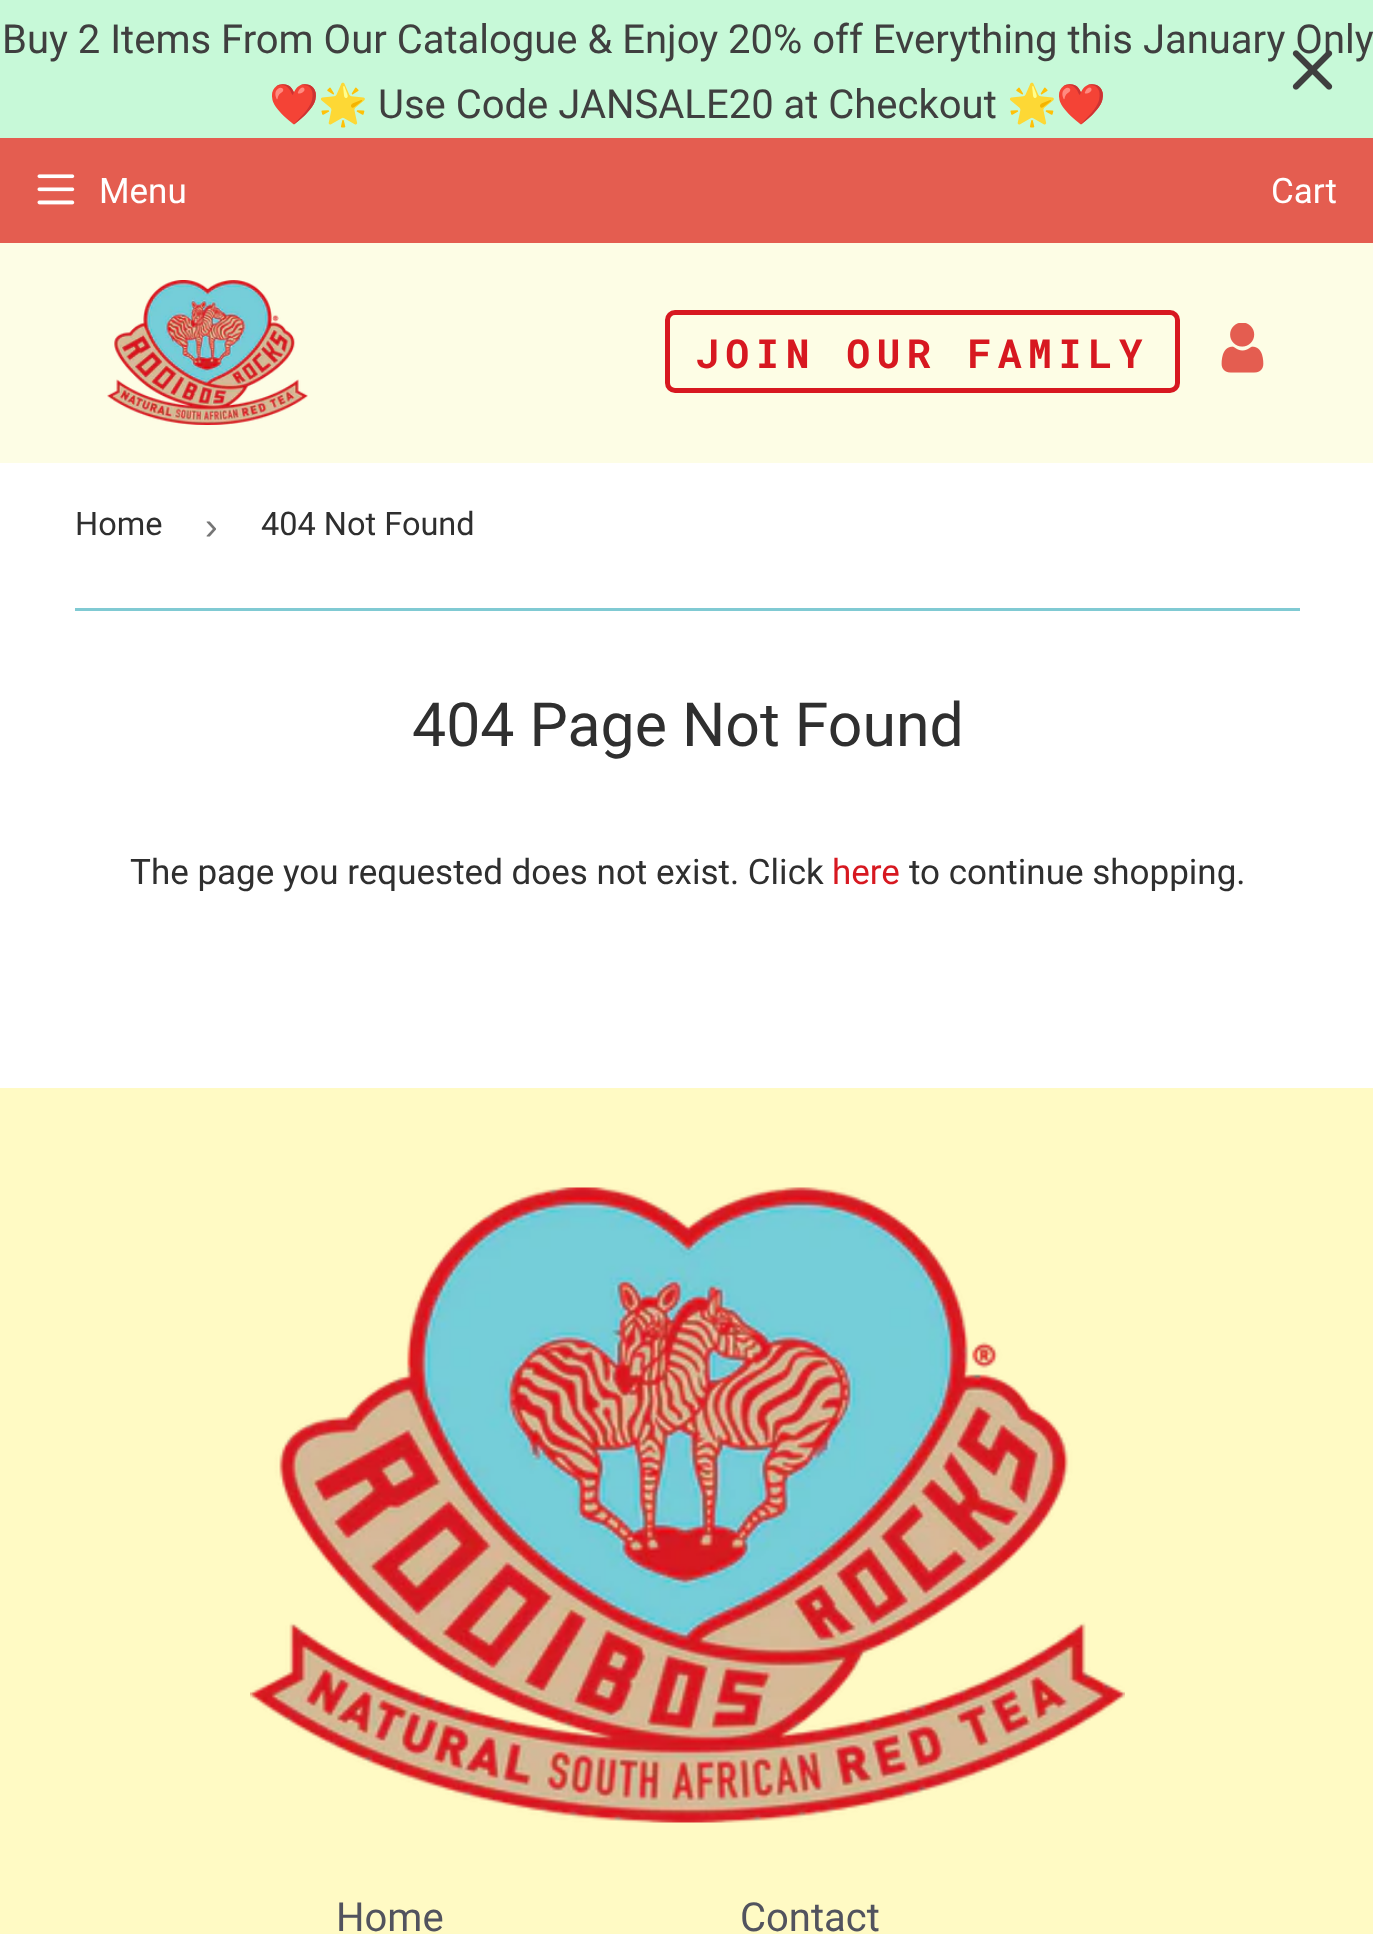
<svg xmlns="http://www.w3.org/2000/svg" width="1373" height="1934">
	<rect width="100%" height="100%" fill="#FFFFFF" />
	<rect x="0" y="0" width="1373" height="138" fill="#C7F9D8" />
	<text x="2" y="53" font-family="Roboto" font-size="40" fill="#3F3F3F">Buy 2 Items From Our Catalogue &amp; Enjoy 20% off Everything this January Only</text>
	<text x="269" y="118" font-family="Noto Color Emoji" font-size="40" fill="#3F3F3F">❤️🌟</text>
	<text x="378" y="118" font-family="Roboto" font-size="40" fill="#3F3F3F">Use Code JANSALE20 at Checkout</text>
	<text x="1007" y="118" font-family="Noto Color Emoji" font-size="40" fill="#3F3F3F">🌟❤️</text>
	<image x="1292" y="50" width="41" height="40" href="assets/img1.png" />
	<rect x="0" y="138" width="1373" height="105" fill="#E45D50" />
	<image x="37" y="174" width="38" height="31" href="assets/img2.png" />
	<g font-family="Roboto" font-size="35" fill="#FFFFFF">
		<text x="99" y="203">Menu</text>
		<text x="1271" y="203">Cart</text>
	</g>
	<rect x="0" y="243" width="1373" height="220" fill="#FDFDE5" />
	<image x="107" y="280" width="201" height="145" href="assets/img3.png" />
	<rect x="667.5" y="312.5" width="510" height="78" rx="7.5" fill="none" stroke="#D71820" stroke-width="5" />
	<text x="695" y="368" font-family="Roboto Mono" font-size="40" font-weight="700" letter-spacing="6.25" fill="#D71820">JOIN OUR FAMILY</text>
	<image x="1221" y="323" width="43" height="50" href="assets/img4.png" />
	<rect x="75" y="608" width="1225" height="3" fill="#80CAD3" />
	<text x="75" y="535" font-family="Roboto" font-size="32.5" fill="#2F2F2F">Home</text>
	<text x="205" y="539" font-family="Liberation Sans" font-size="38" fill="#767676">›</text>
	<text x="261" y="535" font-family="Roboto" font-size="32.5" fill="#2F2F2F">404 Not Found</text>
	<text x="412" y="746" font-family="Roboto" font-size="60.75" fill="#2F2F2F">404 Page Not Found</text>
	<text x="130" y="884" font-family="Roboto" font-size="35" fill="#2F2F2F">The page you requested does not exist. Click</text>
	<text x="832" y="884" font-family="Roboto" font-size="35" fill="#D71820">here</text>
	<text x="909" y="884" font-family="Roboto" font-size="35" fill="#2F2F2F">to continue shopping.</text>
	<rect x="0" y="1088" width="1373" height="846" fill="#FFFAC4" />
	<image x="250" y="1187" width="875" height="636" href="assets/img5.png" />
	<g font-family="Roboto" font-size="40" fill="#52535E">
		<text x="336" y="1931">Home</text>
		<text x="740" y="1931">Contact</text>
	</g>
</svg>
